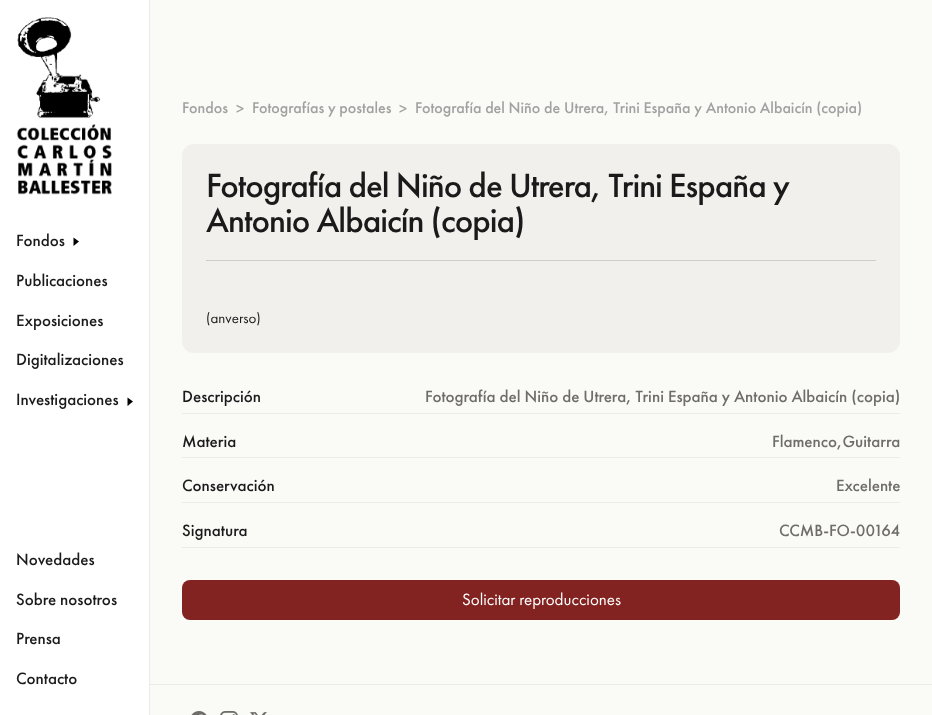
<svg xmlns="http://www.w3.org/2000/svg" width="932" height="715">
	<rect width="100%" height="100%" fill="#FAFAF7" />
	<rect x="0" y="0" width="149" height="715" fill="#FFFFFF" />
	<rect x="149" y="0" width="1" height="715" fill="#ECEBE8" />
	<image x="16" y="17" width="96" height="178" href="assets/img1.png" />
	<text x="16" y="246" font-family="Futura PT" font-size="17" font-weight="500" fill="#1A1A1A">Fondos</text>
	<path d="M73.5 237.5V246L79 241.5Z" fill="#000000" />
	<g font-family="Futura PT" font-size="17" font-weight="500" fill="#1A1A1A">
		<text x="16" y="286">Publicaciones</text>
		<text x="16" y="326">Exposiciones</text>
		<text x="16" y="365">Digitalizaciones</text>
		<text x="16" y="405">Investigaciones</text>
	</g>
	<path d="M127.5 397.5V406L133 401.5Z" fill="#000000" />
	<g font-family="Futura PT" font-size="17" font-weight="500" fill="#1A1A1A">
		<text x="16" y="565">Novedades</text>
		<text x="16" y="605">Sobre nosotros</text>
		<text x="16" y="644">Prensa</text>
		<text x="16" y="684">Contacto</text>
	</g>
	<g font-family="Futura PT" font-size="16" font-weight="500" fill="#A1A1A1">
		<text x="182" y="113">Fondos</text>
		<text x="236" y="114">&gt;</text>
		<text x="252" y="113">Fotografías y postales</text>
		<text x="399" y="114">&gt;</text>
		<text x="415" y="113">Fotografía del Niño de Utrera, Trini España y Antonio Albaicín (copia)</text>
	</g>
	<rect x="182" y="144" width="718" height="209" rx="12" fill="#F2F0ED" />
	<rect x="206" y="260" width="670" height="1" fill="#D1CDC6" />
	<g font-family="Futura PT" font-size="35" font-weight="500" letter-spacing="-1" fill="#1A1A1A">
		<text x="206" y="197">Fotografía del Niño de Utrera, Trini España y</text>
		<text x="206" y="232">Antonio Albaicín (copia)</text>
	</g>
	<text x="206" y="323" font-family="Futura PT" font-size="15" fill="#1A1A1A">(anverso)</text>
	<rect x="182" y="413" width="718" height="1" fill="#ECEBE8" />
	<text x="182" y="402" font-family="Futura PT" font-size="17" font-weight="500" fill="#1A1A1A">Descripción</text>
	<text x="425" y="402" font-family="Futura PT" font-size="17" font-weight="500" fill="#6F6D6A">Fotografía del Niño de Utrera, Trini España y Antonio Albaicín (copia)</text>
	<rect x="182" y="457" width="718" height="1" fill="#ECEBE8" />
	<text x="182" y="447" font-family="Futura PT" font-size="17" font-weight="500" fill="#1A1A1A">Materia</text>
	<text x="772" y="447" font-family="Futura PT" font-size="17" font-weight="500" fill="#6F6D6A">Flamenco,Guitarra</text>
	<rect x="182" y="502" width="718" height="1" fill="#ECEBE8" />
	<text x="182" y="491" font-family="Futura PT" font-size="17" font-weight="500" fill="#1A1A1A">Conservación</text>
	<text x="836" y="491" font-family="Futura PT" font-size="17" font-weight="500" fill="#6F6D6A">Excelente</text>
	<rect x="182" y="547" width="718" height="1" fill="#ECEBE8" />
	<text x="182" y="536" font-family="Futura PT" font-size="17" font-weight="500" fill="#1A1A1A">Signatura</text>
	<text x="779" y="536" font-family="Futura PT" font-size="17" font-weight="500" fill="#6F6D6A">CCMB-FO-00164</text>
	<rect x="182" y="580" width="718" height="40" rx="8" fill="#832321" />
	<text x="462" y="605" font-family="Futura PT" font-size="17" fill="#FFFFFF">Solicitar reproducciones</text>
	<rect x="150" y="684" width="782" height="1" fill="#ECEBE8" />
	<image x="191" y="711" width="16" height="4" href="assets/img2.png" />
	<image x="220" y="711" width="18" height="4" href="assets/img3.png" />
	<image x="250" y="712" width="17" height="3" href="assets/img4.png" />
</svg>
